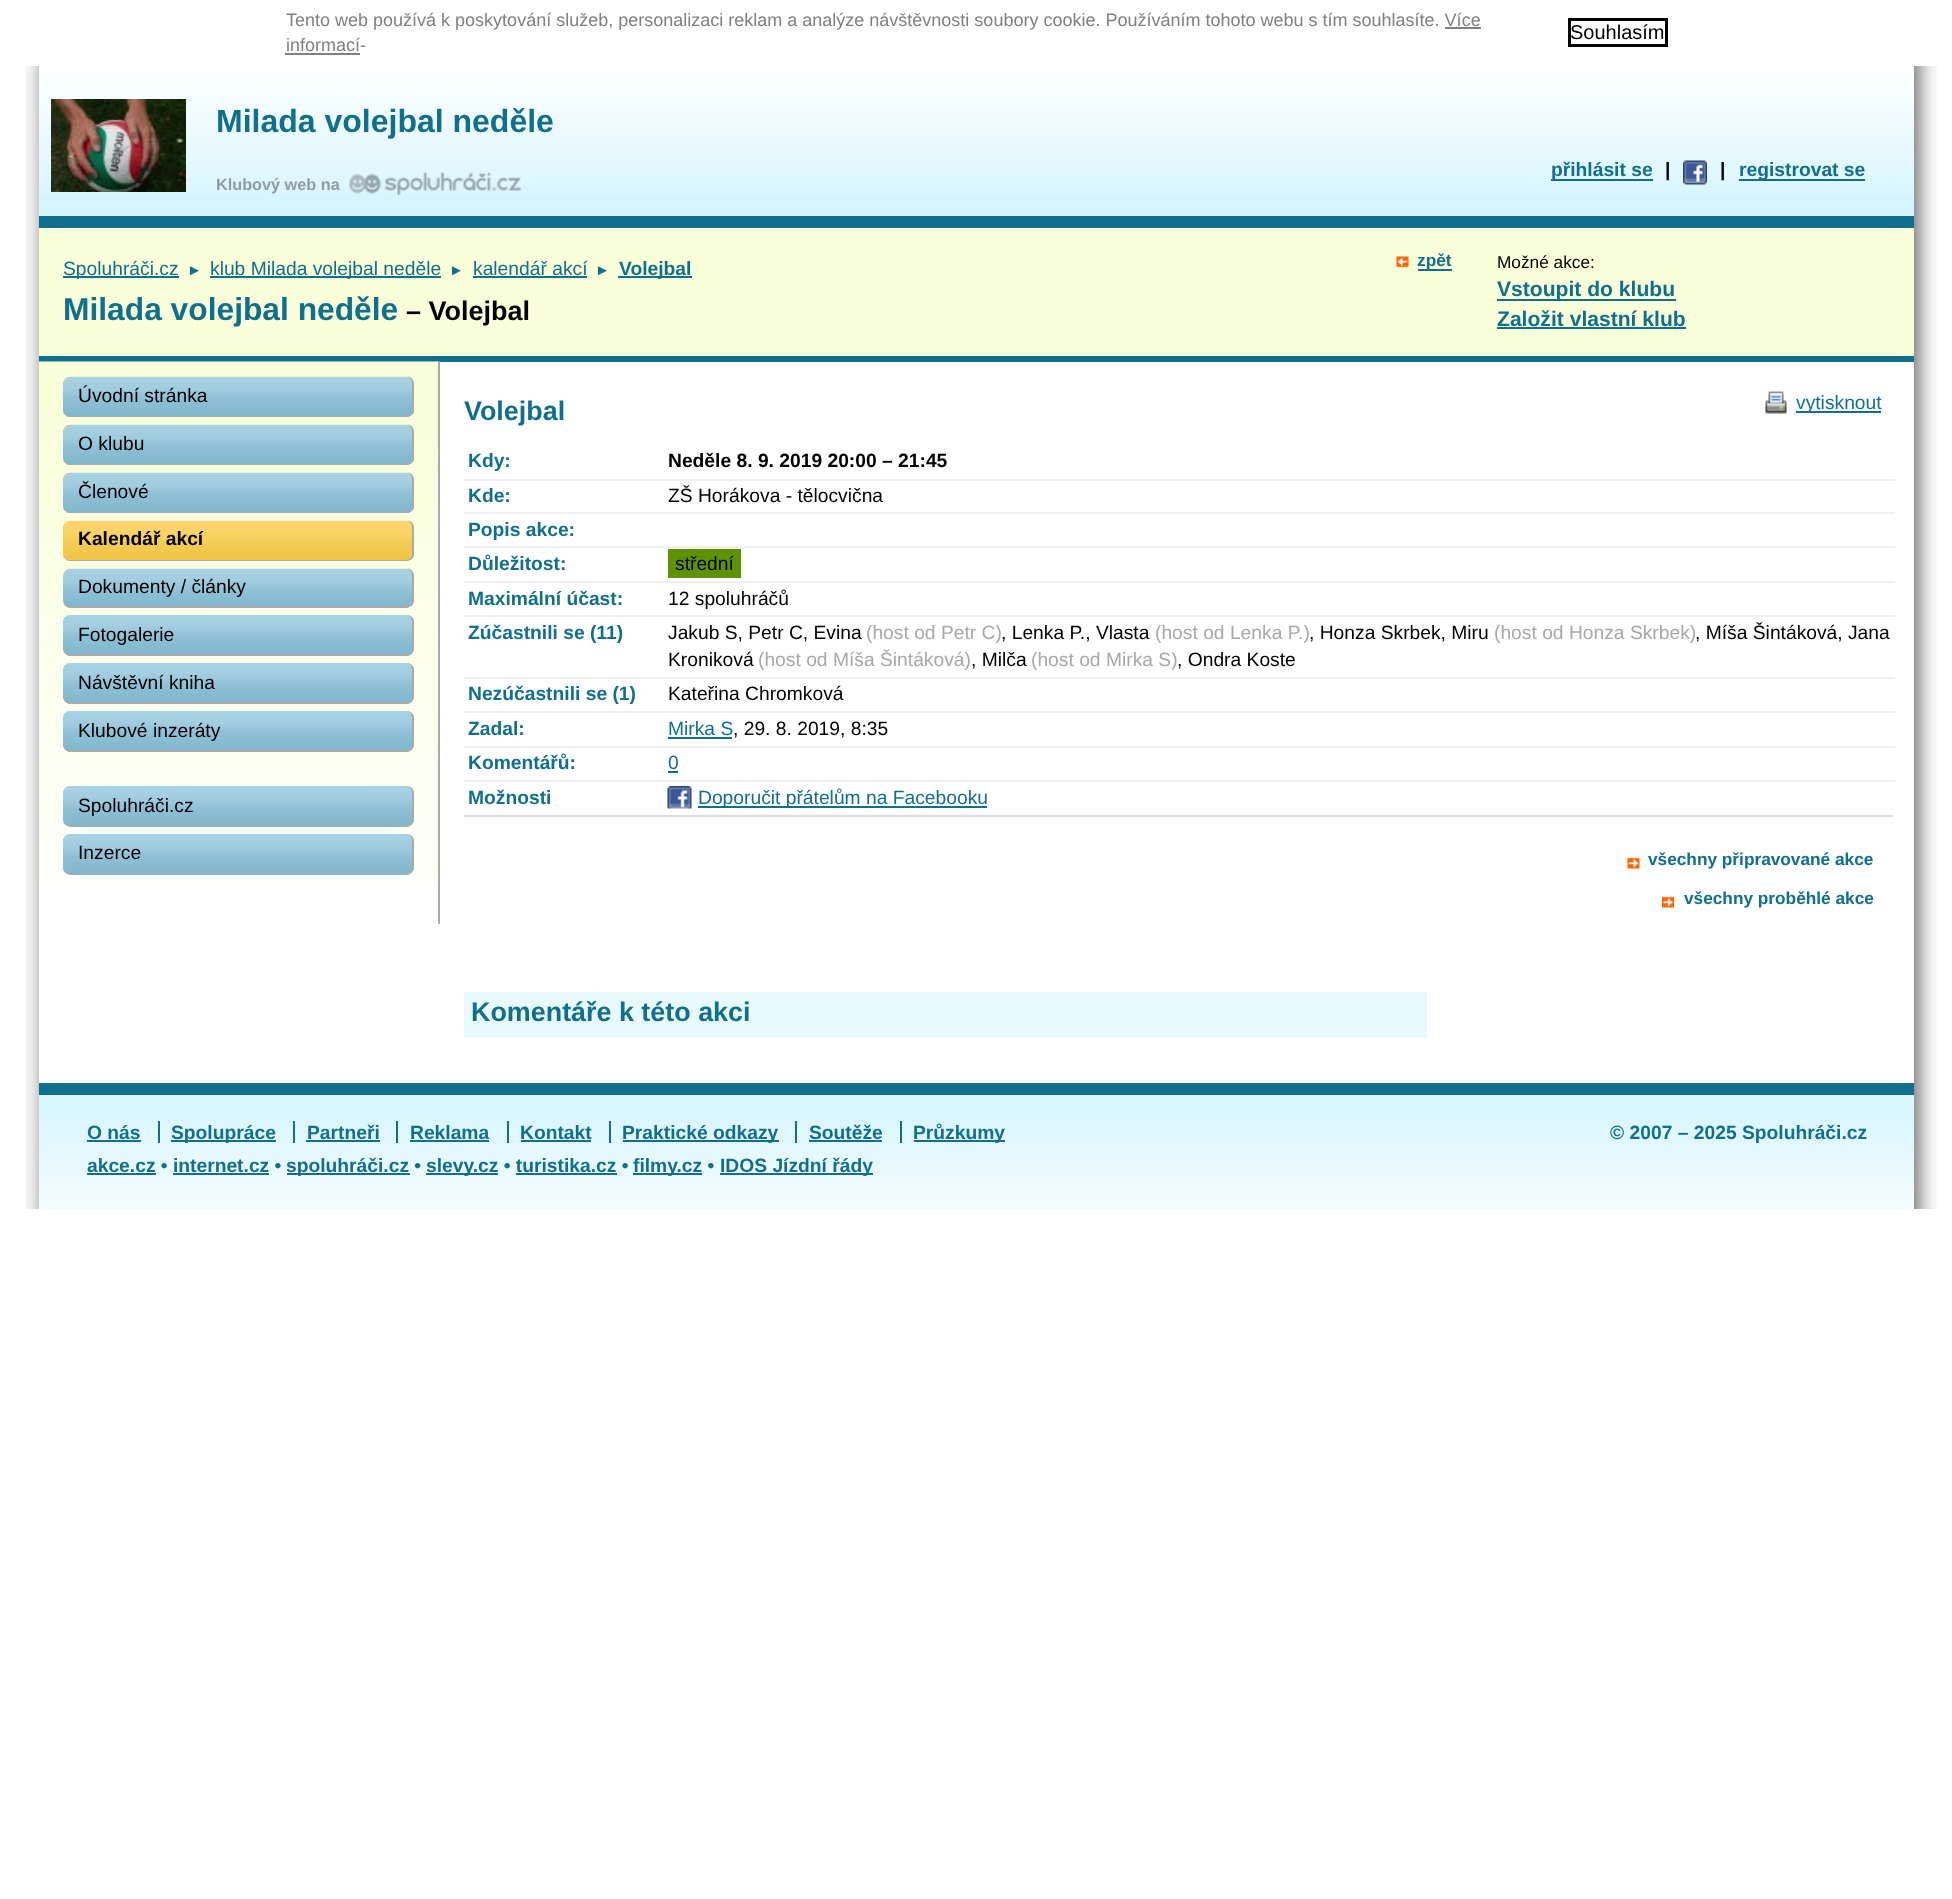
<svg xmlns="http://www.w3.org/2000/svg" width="1952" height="1899">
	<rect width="100%" height="100%" fill="#FFFFFF" />
	<g font-family="Liberation Sans" font-size="18" fill="#808080">
		<text x="286" y="26">Tento web používá k poskytování služeb, personalizaci reklam a analýze návštěvnosti soubory cookie. Používáním tohoto webu s tím souhlasíte. Více</text>
		<text x="286" y="51">informací-</text>
	</g>
	<rect x="1445" y="27" width="36" height="2" fill="#808080" />
	<rect x="285" y="53" width="75" height="2" fill="#808080" />
	<rect x="1569.5" y="19.5" width="97" height="26" fill="none" stroke="#000000" stroke-width="3" />
	<text x="1570" y="39" font-family="Liberation Sans" font-size="20" fill="#000000">Souhlasím</text>
	<image x="25" y="66" width="1912" height="1143" href="assets/img1.png" />
	<rect x="39" y="194" width="1875" height="22" fill="#D6F5FF" />
	<image x="39" y="66" width="1875" height="128" href="assets/img2.png" />
	<rect x="39" y="216" width="1875" height="12" fill="#116F8E" />
	<image x="51" y="99" width="135" height="93" href="assets/img3.png" />
	<text x="216" y="132" font-family="Liberation Sans" font-size="32" font-weight="700" fill="#116F8E">Milada volejbal neděle</text>
	<text x="216" y="190" font-family="Liberation Sans" font-size="16.25" font-weight="700" fill="#8F9DA2">Klubový web na</text>
	<image x="349" y="172" width="172" height="23" href="assets/img4.png" />
	<rect x="1551" y="179" width="102" height="2" fill="#116F8E" />
	<text x="1551" y="176" font-family="Liberation Sans" font-size="19.25" font-weight="700" fill="#116F8E">přihlásit se</text>
	<text x="1665" y="176" font-family="Liberation Sans" font-size="19.25" font-weight="700" fill="#000000">|</text>
	<image x="1683" y="160" width="24" height="25" href="assets/img5.png" />
	<text x="1720" y="176" font-family="Liberation Sans" font-size="19.25" font-weight="700" fill="#000000">|</text>
	<rect x="1739" y="179" width="126" height="2" fill="#116F8E" />
	<text x="1739" y="176" font-family="Liberation Sans" font-size="19.25" font-weight="700" fill="#116F8E">registrovat se</text>
	<rect x="39" y="228" width="1875" height="128" fill="#F9FFD8" />
	<rect x="39" y="356" width="1875" height="6" fill="#116F8E" />
	<rect x="63" y="276" width="116" height="2" fill="#116F8E" />
	<text x="63" y="275" font-family="Liberation Sans" font-size="19.25" fill="#116F8E">Spoluhráči.cz</text>
	<text x="187" y="275" font-family="Liberation Sans" font-size="15" fill="#116F8E">►</text>
	<rect x="210" y="276" width="231" height="2" fill="#116F8E" />
	<text x="210" y="275" font-family="Liberation Sans" font-size="19.25" fill="#116F8E">klub Milada volejbal neděle</text>
	<text x="449" y="275" font-family="Liberation Sans" font-size="15" fill="#116F8E">►</text>
	<text x="473" y="275" font-family="Liberation Sans" font-size="19.25" fill="#116F8E">kalendář akcí</text>
	<rect x="473" y="276" width="114" height="2" fill="#116F8E" />
	<text x="595" y="275" font-family="Liberation Sans" font-size="15" fill="#116F8E">►</text>
	<rect x="618" y="276" width="74" height="2" fill="#116F8E" />
	<text x="619" y="275" font-family="Liberation Sans" font-size="19.25" font-weight="700" fill="#116F8E">Volejbal</text>
	<text x="63" y="320" font-family="Liberation Sans" font-size="31.75" font-weight="700" fill="#116F8E">Milada volejbal neděle</text>
	<text x="406" y="320" font-family="Liberation Sans" font-size="27" font-weight="700" fill="#000000">– Volejbal</text>
	<image x="1396" y="256" width="13" height="12" href="assets/img6.png" />
	<rect x="1418" y="269" width="34" height="2" fill="#116F8E" />
	<text x="1417" y="266" font-family="Liberation Sans" font-size="17.25" font-weight="700" fill="#116F8E">zpět</text>
	<text x="1497" y="268" font-family="Liberation Sans" font-size="17.25" fill="#000000">Možné akce:</text>
	<rect x="1497" y="299" width="179" height="2" fill="#116F8E" />
	<g font-family="Liberation Sans" font-size="21.1" font-weight="700" fill="#116F8E">
		<text x="1497" y="296">Vstoupit do klubu</text>
		<text x="1497" y="326">Založit vlastní klub</text>
	</g>
	<rect x="1497" y="327" width="189" height="2" fill="#116F8E" />
	<rect x="39" y="362" width="1875" height="721" fill="#FFFFFF" />
	<image x="39" y="361" width="401" height="529" href="assets/img7.png" />
	<rect x="438" y="362" width="2" height="562" fill="#AAAAAA" />
	<rect x="63" y="377" width="351" height="40" rx="8" fill="#83B9CF" />
	<image x="63" y="376" width="351" height="38" href="assets/img8.png" />
	<path d="M70 376H406C411 376 414 380 414 384V410C414 414 411 417 406 417H70C66 417 63 414 63 410V384C63 380 66 376 70 376ZM70 376H406C410 376 412 380 412 384V410C412 413 410 416 406 416H70C66 416 63 413 63 410V384C63 380 66 376 70 376Z" fill="#AAAAAA" fill-rule="evenodd" />
	<text x="78" y="402" font-family="Liberation Sans" font-size="19.25" fill="#000000">Úvodní stránka</text>
	<rect x="63" y="425" width="351" height="40" rx="8" fill="#83B9CF" />
	<image x="63" y="424" width="351" height="38" href="assets/img9.png" />
	<path d="M70 424H406C411 424 414 428 414 432V458C414 462 411 465 406 465H70C66 465 63 462 63 458V432C63 428 66 424 70 424ZM70 424H406C410 424 412 428 412 432V458C412 461 410 464 406 464H70C66 464 63 461 63 458V432C63 428 66 424 70 424Z" fill="#AAAAAA" fill-rule="evenodd" />
	<text x="78" y="450" font-family="Liberation Sans" font-size="19.25" fill="#000000">O klubu</text>
	<rect x="63" y="473" width="351" height="40" rx="8" fill="#83B9CF" />
	<image x="63" y="472" width="351" height="38" href="assets/img10.png" />
	<path d="M70 472H406C411 472 414 476 414 480V506C414 510 411 513 406 513H70C66 513 63 510 63 506V480C63 476 66 472 70 472ZM70 472H406C410 472 412 476 412 480V506C412 509 410 512 406 512H70C66 512 63 509 63 506V480C63 476 66 472 70 472Z" fill="#AAAAAA" fill-rule="evenodd" />
	<text x="78" y="498" font-family="Liberation Sans" font-size="19.25" fill="#000000">Členové</text>
	<rect x="63" y="521" width="351" height="40" rx="8" fill="#EFC647" />
	<image x="63" y="520" width="351" height="38" href="assets/img11.png" />
	<path d="M70 520H406C411 520 414 524 414 528V554C414 558 411 561 406 561H70C66 561 63 558 63 554V528C63 524 66 520 70 520ZM70 520H406C410 520 412 524 412 528V554C412 557 410 560 406 560H70C66 560 63 557 63 554V528C63 524 66 520 70 520Z" fill="#AAAAAA" fill-rule="evenodd" />
	<text x="78" y="545" font-family="Liberation Sans" font-size="19.25" font-weight="700" fill="#000000">Kalendář akcí</text>
	<image x="63" y="568" width="351" height="38" href="assets/img12.png" />
	<path d="M70 568H406C411 568 414 572 414 576V600C414 604 411 608 406 608H70C66 608 63 604 63 600V576C63 572 66 568 70 568ZM70 568H406C410 568 412 572 412 576V600C412 603 410 606 406 606H70C66 606 63 603 63 600V576C63 572 66 568 70 568Z" fill="#AAAAAA" fill-rule="evenodd" />
	<text x="78" y="593" font-family="Liberation Sans" font-size="19.25" fill="#000000">Dokumenty / články</text>
	<rect x="63" y="615" width="351" height="41" rx="8" fill="#83B9CF" />
	<image x="63" y="615" width="351" height="38" href="assets/img13.png" />
	<path d="M70 615H406C411 615 414 618 414 622V648C414 652 411 656 406 656H70C66 656 63 652 63 648V622C63 618 66 615 70 615ZM70 615H406C410 615 412 618 412 622V648C412 651 410 654 406 654H70C66 654 63 651 63 648V622C63 618 66 615 70 615Z" fill="#AAAAAA" fill-rule="evenodd" />
	<text x="78" y="641" font-family="Liberation Sans" font-size="19.25" fill="#000000">Fotogalerie</text>
	<rect x="63" y="663" width="351" height="41" rx="8" fill="#83B9CF" />
	<image x="63" y="663" width="351" height="38" href="assets/img14.png" />
	<path d="M70 663H406C411 663 414 666 414 670V696C414 700 411 704 406 704H70C66 704 63 700 63 696V670C63 666 66 663 70 663ZM70 663H406C410 663 412 666 412 670V696C412 699 410 702 406 702H70C66 702 63 699 63 696V670C63 666 66 663 70 663Z" fill="#AAAAAA" fill-rule="evenodd" />
	<text x="78" y="689" font-family="Liberation Sans" font-size="19.25" fill="#000000">Návštěvní kniha</text>
	<rect x="63" y="711" width="351" height="41" rx="8" fill="#83B9CF" />
	<image x="63" y="711" width="351" height="38" href="assets/img15.png" />
	<path d="M70 711H406C411 711 414 714 414 718V744C414 748 411 752 406 752H70C66 752 63 748 63 744V718C63 714 66 711 70 711ZM70 711H406C410 711 412 714 412 718V744C412 747 410 750 406 750H70C66 750 63 747 63 744V718C63 714 66 711 70 711Z" fill="#AAAAAA" fill-rule="evenodd" />
	<text x="78" y="737" font-family="Liberation Sans" font-size="19.25" fill="#000000">Klubové inzeráty</text>
	<rect x="63" y="786" width="351" height="41" rx="8" fill="#83B9CF" />
	<image x="63" y="786" width="351" height="38" href="assets/img16.png" />
	<path d="M70 786H406C411 786 414 789 414 794V819C414 823 411 826 406 826H70C66 826 63 823 63 819V794C63 789 66 786 70 786ZM70 786H406C410 786 412 789 412 794V819C412 822 410 825 406 825H70C66 825 63 822 63 819V794C63 789 66 786 70 786Z" fill="#AAAAAA" fill-rule="evenodd" />
	<text x="78" y="812" font-family="Liberation Sans" font-size="19.25" fill="#000000">Spoluhráči.cz</text>
	<rect x="63" y="834" width="351" height="41" rx="8" fill="#83B9CF" />
	<image x="63" y="834" width="351" height="38" href="assets/img17.png" />
	<path d="M70 834H406C411 834 414 837 414 842V867C414 871 411 874 406 874H70C66 874 63 871 63 867V842C63 837 66 834 70 834ZM70 834H406C410 834 412 837 412 842V867C412 870 410 873 406 873H70C66 873 63 870 63 867V842C63 837 66 834 70 834Z" fill="#AAAAAA" fill-rule="evenodd" />
	<text x="78" y="859" font-family="Liberation Sans" font-size="19.25" fill="#000000">Inzerce</text>
	<rect x="464" y="815" width="1429" height="2" fill="#DCDCDC" />
	<text x="464" y="420" font-family="Liberation Sans" font-size="26.9" font-weight="700" fill="#116F8E">Volejbal</text>
	<image x="1765" y="391" width="22" height="23" href="assets/img18.png" />
	<rect x="1796" y="411" width="85" height="2" fill="#116F8E" />
	<text x="1796" y="409" font-family="Liberation Sans" font-size="19.25" fill="#116F8E">vytisknout</text>
	<text x="468" y="467" font-family="Liberation Sans" font-size="19.25" font-weight="700" fill="#116F8E">Kdy:</text>
	<text x="668" y="467" font-family="Liberation Sans" font-size="19.25" font-weight="700" fill="#000000">Neděle 8. 9. 2019 20:00 – 21:45</text>
	<text x="468" y="502" font-family="Liberation Sans" font-size="19.25" font-weight="700" fill="#116F8E">Kde:</text>
	<rect x="464" y="479" width="1431" height="2" fill="#F0F0F0" />
	<text x="668" y="502" font-family="Liberation Sans" font-size="19.25" fill="#000000">ZŠ Horákova - tělocvična</text>
	<rect x="464" y="512" width="1431" height="2" fill="#F0F0F0" />
	<g font-family="Liberation Sans" font-size="19.25" font-weight="700" fill="#116F8E">
		<text x="468" y="536">Popis akce:</text>
		<text x="468" y="570">Důležitost:</text>
	</g>
	<rect x="464" y="546" width="1431" height="2" fill="#F0F0F0" />
	<rect x="668" y="549" width="73" height="29" fill="#5E9200" />
	<text x="675" y="570" font-family="Liberation Sans" font-size="19.25" fill="#000000">střední</text>
	<text x="468" y="605" font-family="Liberation Sans" font-size="19.25" font-weight="700" fill="#116F8E">Maximální účast:</text>
	<rect x="464" y="581" width="1431" height="2" fill="#F0F0F0" />
	<text x="668" y="605" font-family="Liberation Sans" font-size="19.25" fill="#000000">12 spoluhráčů</text>
	<text x="468" y="639" font-family="Liberation Sans" font-size="19.25" font-weight="700" fill="#116F8E">Zúčastnili se (11)</text>
	<rect x="464" y="615" width="1431" height="2" fill="#F0F0F0" />
	<text x="668" y="639" font-family="Liberation Sans" font-size="19.25" fill="#000000">Jakub S, Petr C, Evina</text>
	<text x="866" y="639" font-family="Liberation Sans" font-size="19.25" fill="#A8A8A8">(host od Petr C)</text>
	<text x="1001" y="639" font-family="Liberation Sans" font-size="19.25" fill="#000000">, Lenka P., Vlasta</text>
	<text x="1155" y="639" font-family="Liberation Sans" font-size="19.25" fill="#A8A8A8">(host od Lenka P.)</text>
	<text x="1309" y="639" font-family="Liberation Sans" font-size="19.25" fill="#000000">, Honza Skrbek, Miru</text>
	<text x="1494" y="639" font-family="Liberation Sans" font-size="19.25" fill="#A8A8A8">(host od Honza Skrbek)</text>
	<g font-family="Liberation Sans" font-size="19.25" fill="#000000">
		<text x="1695" y="639">, Míša Šintáková, Jana</text>
		<text x="668" y="666">Kroniková</text>
	</g>
	<text x="758" y="666" font-family="Liberation Sans" font-size="19.25" fill="#A8A8A8">(host od Míša Šintáková)</text>
	<text x="971" y="666" font-family="Liberation Sans" font-size="19.25" fill="#000000">, Milča</text>
	<text x="1031" y="666" font-family="Liberation Sans" font-size="19.25" fill="#A8A8A8">(host od Mirka S)</text>
	<text x="1177" y="666" font-family="Liberation Sans" font-size="19.25" fill="#000000">, Ondra Koste</text>
	<text x="468" y="700" font-family="Liberation Sans" font-size="19.25" font-weight="700" fill="#116F8E">Nezúčastnili se (1)</text>
	<rect x="464" y="677" width="1431" height="2" fill="#F0F0F0" />
	<text x="668" y="700" font-family="Liberation Sans" font-size="19.25" fill="#000000">Kateřina Chromková</text>
	<text x="468" y="735" font-family="Liberation Sans" font-size="19.25" font-weight="700" fill="#116F8E">Zadal:</text>
	<rect x="464" y="711" width="1431" height="2" fill="#F0F0F0" />
	<text x="668" y="735" font-family="Liberation Sans" font-size="19.25" fill="#116F8E">Mirka S</text>
	<rect x="668" y="737" width="64" height="2" fill="#116F8E" />
	<text x="733" y="735" font-family="Liberation Sans" font-size="19.25" fill="#000000">, 29. 8. 2019, 8:35</text>
	<text x="468" y="769" font-family="Liberation Sans" font-size="19.25" font-weight="700" fill="#116F8E">Komentářů:</text>
	<rect x="464" y="746" width="1431" height="2" fill="#F0F0F0" />
	<text x="668" y="769" font-family="Liberation Sans" font-size="19.25" fill="#116F8E">0</text>
	<rect x="668" y="771" width="10" height="2" fill="#116F8E" />
	<text x="468" y="804" font-family="Liberation Sans" font-size="19.25" font-weight="700" fill="#116F8E">Možnosti</text>
	<rect x="464" y="780" width="1431" height="2" fill="#F0F0F0" />
	<image x="667" y="786" width="25" height="23" href="assets/img19.png" />
	<rect x="698" y="806" width="289" height="2" fill="#116F8E" />
	<text x="698" y="804" font-family="Liberation Sans" font-size="19.25" fill="#116F8E">Doporučit přátelům na Facebooku</text>
	<image x="1627" y="857" width="13" height="12" href="assets/img20.png" />
	<text x="1648" y="865" font-family="Liberation Sans" font-size="17.25" font-weight="700" fill="#116F8E">všechny připravované akce</text>
	<image x="1662" y="896" width="12" height="12" href="assets/img21.png" />
	<text x="1684" y="904" font-family="Liberation Sans" font-size="17.25" font-weight="700" fill="#116F8E">všechny proběhlé akce</text>
	<rect x="464" y="992" width="963" height="46" fill="#E9FAFF" />
	<text x="471" y="1021" font-family="Liberation Sans" font-size="26.9" font-weight="700" fill="#116F8E">Komentáře k této akci</text>
	<image x="39" y="1095" width="1875" height="114" href="assets/img22.png" />
	<rect x="39" y="1083" width="1875" height="12" fill="#116F8E" />
	<text x="87" y="1139" font-family="Liberation Sans" font-size="19.25" font-weight="700" fill="#116F8E">O nás</text>
	<rect x="87" y="1140" width="54" height="2" fill="#116F8E" />
	<rect x="171" y="1140" width="105" height="2" fill="#116F8E" />
	<text x="171" y="1139" font-family="Liberation Sans" font-size="19.25" font-weight="700" fill="#116F8E">Spolupráce</text>
	<rect x="158" y="1121" width="2" height="22" fill="#116F8E" />
	<text x="307" y="1139" font-family="Liberation Sans" font-size="19.25" font-weight="700" fill="#116F8E">Partneři</text>
	<rect x="293" y="1121" width="2" height="22" fill="#116F8E" />
	<rect x="306" y="1140" width="74" height="2" fill="#116F8E" />
	<text x="410" y="1139" font-family="Liberation Sans" font-size="19.25" font-weight="700" fill="#116F8E">Reklama</text>
	<rect x="396" y="1121" width="2" height="22" fill="#116F8E" />
	<rect x="410" y="1140" width="79" height="2" fill="#116F8E" />
	<text x="520" y="1139" font-family="Liberation Sans" font-size="19.25" font-weight="700" fill="#116F8E">Kontakt</text>
	<rect x="507" y="1121" width="2" height="22" fill="#116F8E" />
	<rect x="521" y="1140" width="70" height="2" fill="#116F8E" />
	<rect x="623" y="1140" width="156" height="2" fill="#116F8E" />
	<text x="622" y="1139" font-family="Liberation Sans" font-size="19.25" font-weight="700" fill="#116F8E">Praktické odkazy</text>
	<rect x="609" y="1121" width="2" height="22" fill="#116F8E" />
	<text x="809" y="1139" font-family="Liberation Sans" font-size="19.25" font-weight="700" fill="#116F8E">Soutěže</text>
	<rect x="795" y="1121" width="2" height="22" fill="#116F8E" />
	<rect x="809" y="1140" width="73" height="2" fill="#116F8E" />
	<rect x="914" y="1140" width="91" height="2" fill="#116F8E" />
	<text x="913" y="1139" font-family="Liberation Sans" font-size="19.25" font-weight="700" fill="#116F8E">Průzkumy</text>
	<rect x="900" y="1121" width="2" height="22" fill="#116F8E" />
	<g font-family="Liberation Sans" font-size="19.25" font-weight="700" fill="#116F8E">
		<text x="1610" y="1139">© 2007 – 2025 Spoluhráči.cz</text>
		<text x="87" y="1172">akce.cz • internet.cz •</text>
	</g>
	<rect x="87" y="1173" width="69" height="2" fill="#116F8E" />
	<rect x="287" y="1173" width="123" height="2" fill="#116F8E" />
	<text x="286" y="1172" font-family="Liberation Sans" font-size="19.25" font-weight="700" fill="#116F8E">spoluhráči.cz •</text>
	<rect x="426" y="1173" width="72" height="2" fill="#116F8E" />
	<text x="426" y="1172" font-family="Liberation Sans" font-size="19.25" font-weight="700" fill="#116F8E">slevy.cz • turistika.cz •</text>
	<rect x="633" y="1173" width="69" height="2" fill="#116F8E" />
	<text x="633" y="1172" font-family="Liberation Sans" font-size="19.25" font-weight="700" fill="#116F8E">filmy.cz •</text>
	<rect x="720" y="1173" width="153" height="2" fill="#116F8E" />
	<text x="720" y="1172" font-family="Liberation Sans" font-size="19.25" font-weight="700" fill="#116F8E">IDOS Jízdní řády</text>
	<rect x="173" y="1173" width="96" height="2" fill="#116F8E" />
	<rect x="516" y="1173" width="101" height="2" fill="#116F8E" />
</svg>
